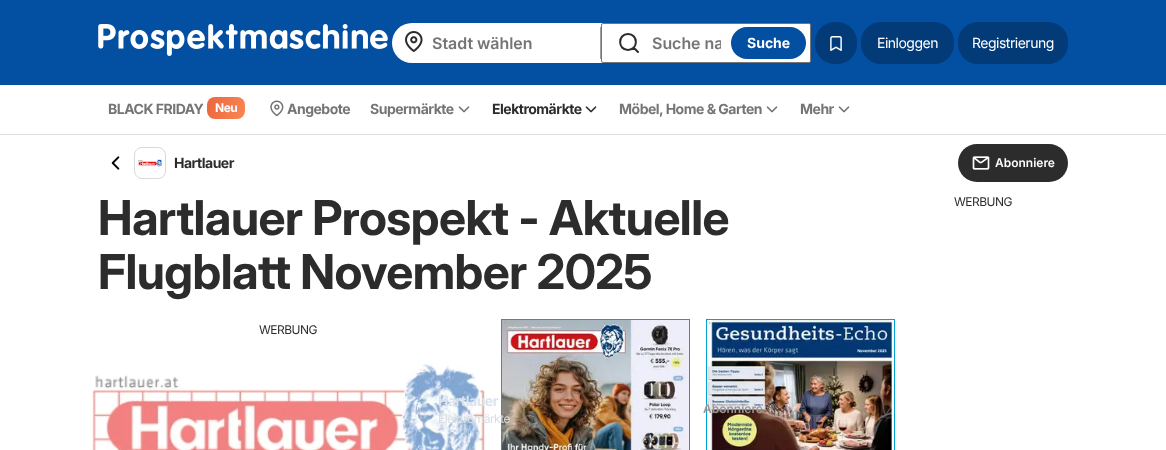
<svg xmlns="http://www.w3.org/2000/svg" width="1166" height="450">
	<defs>
		<clipPath id="clip1"><rect x="652" y="33" width="69" height="20" /></clipPath>
		<linearGradient id="g1" gradientUnits="userSpaceOnUse" x1="206" y1="102" x2="247" y2="114"><stop offset="0.01" stop-color="#EC673F" /><stop offset="1" stop-color="#F98753" /></linearGradient>
	</defs>
	<rect width="100%" height="100%" fill="#FFFFFF" />
	<rect x="0" y="0" width="1166" height="85" fill="#034FA1" />
	<image x="98" y="24" width="290" height="32" href="assets/img1.png" />
	<rect x="392" y="23" width="419" height="40" rx="20" fill="#FFFFFF" />
	<image x="405" y="31" width="18" height="21" href="assets/img2.png" />
	<text x="432" y="49" font-family="Inter" font-size="16" font-weight="600" fill="#757575">Stadt wählen</text>
	<rect x="600" y="27" width="1" height="32" fill="#9D9D9D" />
	<rect x="601.5" y="23.5" width="209" height="39" rx="1.5" fill="#FFFFFF" stroke="#767676" />
	<path d="M628 50C638.5 50 638.5 34 628 34C617.5 34 617.5 50 628 50ZM638 52L633.5 47.5" fill="none" stroke="#2C2C2C" stroke-width="2" stroke-linecap="round" stroke-linejoin="round" />
	<g clip-path="url(#clip1)">
		<text x="652" y="49" font-family="Inter" font-size="16" font-weight="600" fill="#757575">Suche na</text>
	</g>
	<rect x="731" y="27" width="75" height="32" rx="16" fill="#034FA1" />
	<text x="747" y="48" font-family="Inter" font-size="14" font-weight="700" fill="#FFFFFF">Suche</text>
	<rect x="815" y="22" width="42" height="42" rx="20" fill="#023B78" />
	<image x="830" y="36" width="12" height="15" href="assets/img3.png" />
	<rect x="861" y="22" width="93" height="42" rx="20" fill="#023B78" />
	<text x="877" y="48" font-family="Inter" font-size="14" letter-spacing="-0.5" fill="#FFFFFF">Einloggen</text>
	<rect x="958" y="22" width="110" height="42" rx="20" fill="#023B78" />
	<text x="972" y="48" font-family="Inter" font-size="14" letter-spacing="-0.5" fill="#FFFFFF">Registrierung</text>
	<rect x="0" y="134" width="1166" height="1" fill="#DDDDDD" />
	<text x="108" y="114" font-family="Inter" font-size="14" font-weight="700" letter-spacing="-0.5" fill="#757575">BLACK FRIDAY</text>
	<rect x="207" y="97" width="38" height="22" rx="8" fill="url(#g1)" />
	<text x="215" y="112" font-family="Inter" font-size="12" font-weight="700" letter-spacing="-0.5" fill="#FFFFFF">Neu</text>
	<image x="270" y="100" width="14" height="17" href="assets/img4.png" />
	<g font-family="Inter" font-size="14" font-weight="700" letter-spacing="-0.5" fill="#757575">
		<text x="287" y="114">Angebote</text>
		<text x="370" y="114">Supermärkte</text>
	</g>
	<image x="458" y="106" width="12" height="7" href="assets/img5.png" />
	<text x="492" y="114" font-family="Inter" font-size="14" font-weight="700" letter-spacing="-0.5" fill="#2C2C2C">Elektromärkte</text>
	<image x="585" y="106" width="12" height="7" href="assets/img6.png" />
	<text x="619" y="114" font-family="Inter" font-size="14" font-weight="700" letter-spacing="-0.5" fill="#757575">Möbel, Home &amp; Garten</text>
	<image x="766" y="106" width="12" height="7" href="assets/img5.png" />
	<text x="800" y="114" font-family="Inter" font-size="14" font-weight="700" letter-spacing="-0.5" fill="#757575">Mehr</text>
	<image x="838" y="106" width="12" height="7" href="assets/img5.png" />
	<image x="111" y="156" width="9" height="14" href="assets/img7.png" />
	<rect x="134.5" y="147.5" width="31" height="31" rx="7.5" fill="none" stroke="#D9D9D9" />
	<image x="138" y="159" width="24" height="9" href="assets/img8.png" />
	<text x="174" y="168" font-family="Inter" font-size="14" font-weight="700" letter-spacing="-0.5" fill="#2C2C2C">Hartlauer</text>
	<rect x="958" y="144" width="110" height="38" rx="19" fill="#2C2C2C" />
	<image x="972" y="156" width="18" height="14" href="assets/img9.png" />
	<text x="995" y="167" font-family="'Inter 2'" font-size="12" font-weight="600" fill="#FFFFFF">Abonniere</text>
	<g font-family="'Inter 2'" font-size="48" font-weight="700" letter-spacing="-0.5" fill="#2C2C2C">
		<text x="98" y="235">Hartlauer Prospekt - Aktuelle</text>
		<text x="98" y="289">Flugblatt November 2025</text>
	</g>
	<image x="91" y="364" width="394" height="86" href="assets/img10.png" />
	<text x="259" y="334" font-family="Inter" font-size="12" letter-spacing="-0.5" fill="#2C2C2C">WERBUNG</text>
	<rect x="501.5" y="319.5" width="188" height="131" fill="none" stroke="#00A3D1" />
	<image x="502" y="320" width="187" height="130" href="assets/img11.png" />
	<rect x="706.5" y="319.5" width="188" height="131" fill="none" stroke="#00A3D1" />
	<image x="707" y="320" width="187" height="130" href="assets/img12.png" />
	<text x="438" y="406" font-family="Inter" font-size="14" font-weight="700" letter-spacing="-0.5" fill="#DAE3EE">Hartlauer</text>
	<text x="438" y="423" font-family="Inter" font-size="12" letter-spacing="-0.5" fill="#D8DEE3">Elektromärkte</text>
	<text x="703" y="413" font-family="'Inter 2'" font-size="12" font-weight="600" fill="#9B9697">Abonniere</text>
	<text x="954" y="206" font-family="Inter" font-size="12" letter-spacing="-0.5" fill="#2C2C2C">WERBUNG</text>
</svg>
